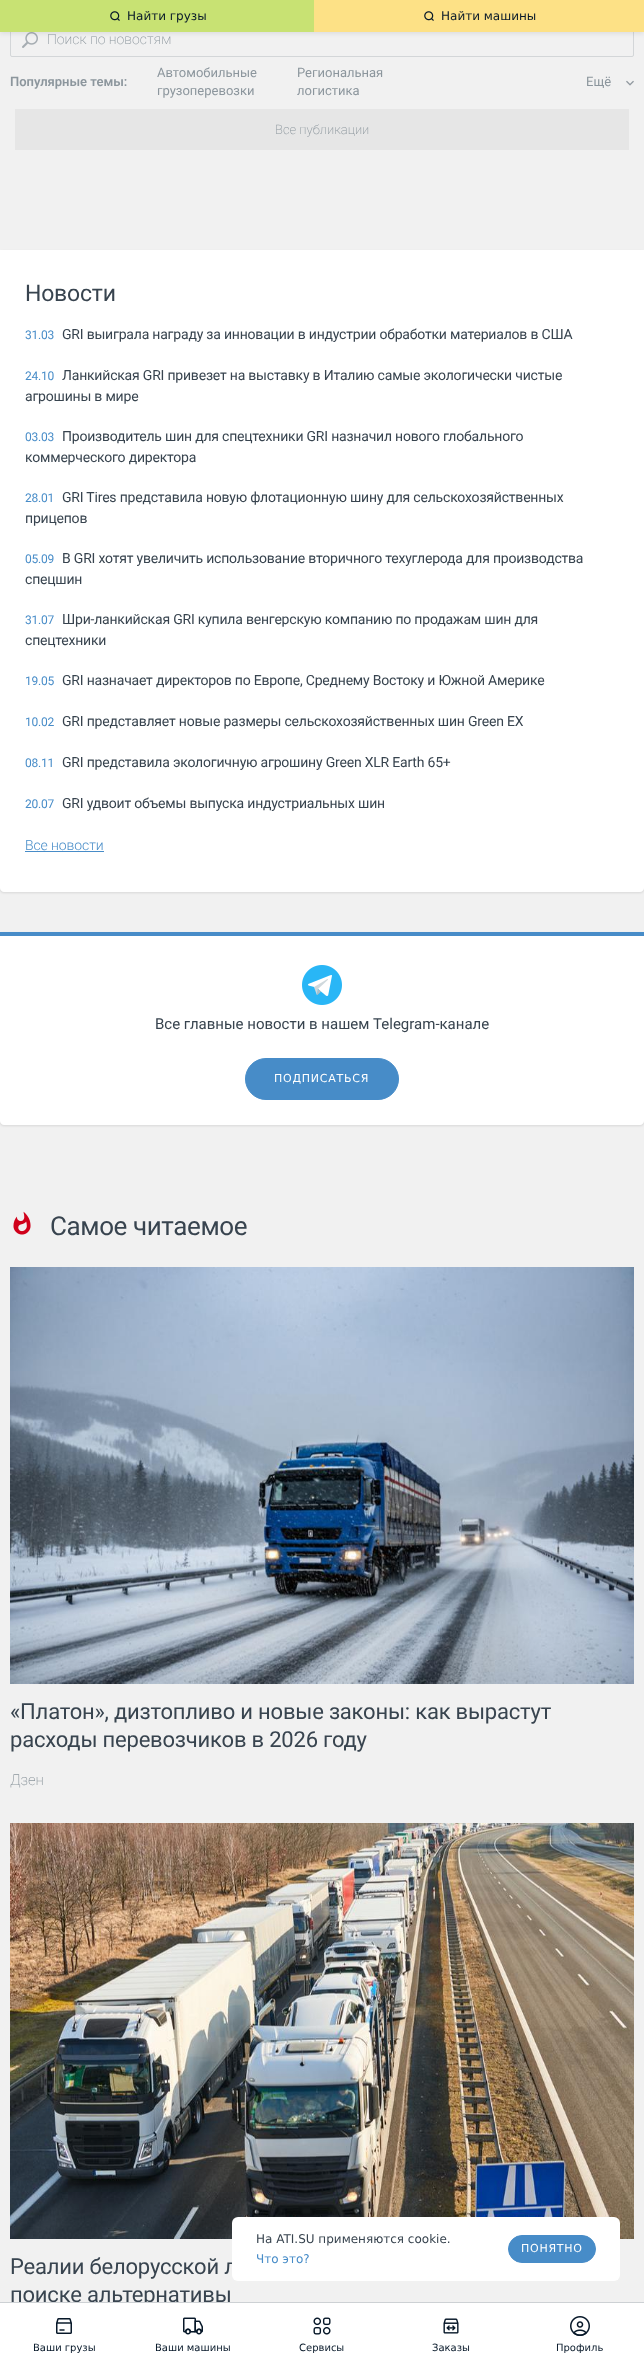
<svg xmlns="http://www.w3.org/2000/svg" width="644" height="2369">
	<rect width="100%" height="100%" fill="#F1F1F1" />
	<rect x="10.5" y="21.5" width="623" height="35" rx="1.5" fill="none" stroke="#D3D6D8" />
	<image x="22" y="32" width="16" height="16" href="assets/img8.png" />
	<rect x="0" y="2" width="644" height="32" fill="#071829" fill-opacity="0.08" filter="blur(2px)" />
	<rect x="0" y="0" width="314" height="32" fill="#D3EE78" />
	<image x="110" y="11" width="10" height="10" href="assets/img1.png" />
	<rect x="0" y="0" width="314" height="32" fill="#071829" fill-opacity="0.05" />
	<text x="127" y="20" font-family="DejaVu Sans" font-size="12" fill="#071829">Найти грузы</text>
	<rect x="314" y="0" width="330" height="32" fill="#FDE186" />
	<image x="424" y="11" width="10" height="10" href="assets/img2.png" />
	<text x="441" y="20" font-family="DejaVu Sans" font-size="12" fill="#071829">Найти машины</text>
	<image x="10" y="1823" width="624" height="416" href="assets/img13.png" />
	<text x="10" y="2274" font-family="Roboto" font-size="22" letter-spacing="-0.2" fill="#38444F">Реалии белорусской л</text>
	<rect x="232" y="2217" width="388" height="64" rx="6" fill="#FFFFFF" />
	<text x="256" y="2243" font-family="DejaVu Sans" font-size="12" fill="#38444F">На ATI.SU применяются cookie.</text>
	<text x="256" y="2263" font-family="DejaVu Sans" font-size="12" fill="#478CC8">Что это?</text>
	<rect x="508.5" y="2235.5" width="87" height="27" rx="13.5" fill="#478CC8" stroke="#478CC8" />
	<text x="521" y="2252" font-family="DejaVu Sans" font-size="11" letter-spacing="0.75" fill="#FFFFFF">ПОНЯТНО</text>
	<text x="10" y="2302" font-family="Roboto" font-size="22" letter-spacing="-0.2" fill="#38444F">поиске альтернативы</text>
	<rect x="0" y="2303" width="644" height="66" fill="#FFFFFF" />
	<rect x="0" y="2302" width="644" height="1" fill="#CDD1D4" />
	<image x="56" y="2318" width="16" height="16" href="assets/img3.png" />
	<text x="33" y="2351" font-family="DejaVu Sans" font-size="10" fill="#071829">Ваши грузы</text>
	<image x="183" y="2317" width="20" height="18" href="assets/img4.png" />
	<text x="155" y="2351" font-family="DejaVu Sans" font-size="10" fill="#071829">Ваши машины</text>
	<image x="313" y="2317" width="18" height="18" href="assets/img5.png" />
	<text x="299" y="2351" font-family="DejaVu Sans" font-size="10" fill="#071829">Сервисы</text>
	<image x="443" y="2318" width="16" height="16" href="assets/img6.png" />
	<text x="432" y="2351" font-family="DejaVu Sans" font-size="10" fill="#071829">Заказы</text>
	<image x="570" y="2316" width="20" height="20" href="assets/img7.png" />
	<text x="556" y="2351" font-family="DejaVu Sans" font-size="10" fill="#071829">Профиль</text>
	<text x="47" y="44" font-family="Roboto" font-size="14" font-weight="200" fill="#8C969D">Поиск по новостям</text>
	<text x="10" y="86" font-family="Roboto" font-size="13" font-weight="600" fill="#8C969D">Популярные темы:</text>
	<g font-family="Roboto" font-size="13" fill="#8C969D">
		<text x="157" y="77">Автомобильные</text>
		<text x="157" y="95">грузоперевозки</text>
		<text x="297" y="77">Региональная</text>
		<text x="297" y="95">логистика</text>
		<text x="586" y="86">Ещё</text>
	</g>
	<image x="626" y="80" width="8" height="6" href="assets/img9.png" />
	<rect x="15" y="109" width="614" height="41" fill="#E6E6E6" />
	<text x="275" y="134" font-family="Roboto" font-size="13" font-weight="200" fill="#8C969D">Все публикации</text>
	<rect x="0" y="251" width="644" height="642" rx="4" fill="#000000" fill-opacity="0.1" filter="blur(1px)" />
	<path d="M0 250H644V888C644 890 642 892 640 892H4C2 892 0 890 0 888Z" fill="#FFFFFF" />
	<text x="25" y="301" font-family="Roboto" font-size="23" letter-spacing="-0.2" fill="#38444F">Новости</text>
	<text x="25" y="339" font-family="Roboto" font-size="12" letter-spacing="-0.2" fill="#478CC8">31.03</text>
	<text x="62" y="339" font-family="Roboto" font-size="14" letter-spacing="-0.2" fill="#38444F">GRI выиграла награду за инновации в индустрии обработки материалов в США</text>
	<text x="25" y="380" font-family="Roboto" font-size="12" letter-spacing="-0.2" fill="#478CC8">24.10</text>
	<g font-family="Roboto" font-size="14" letter-spacing="-0.2" fill="#38444F">
		<text x="62" y="380">Ланкийская GRI привезет на выставку в Италию самые экологически чистые</text>
		<text x="25" y="401">агрошины в мире</text>
	</g>
	<text x="25" y="441" font-family="Roboto" font-size="12" letter-spacing="-0.2" fill="#478CC8">03.03</text>
	<g font-family="Roboto" font-size="14" letter-spacing="-0.2" fill="#38444F">
		<text x="62" y="441">Производитель шин для спецтехники GRI назначил нового глобального</text>
		<text x="25" y="462">коммерческого директора</text>
	</g>
	<text x="25" y="502" font-family="Roboto" font-size="12" letter-spacing="-0.2" fill="#478CC8">28.01</text>
	<g font-family="Roboto" font-size="14" letter-spacing="-0.2" fill="#38444F">
		<text x="62" y="502">GRI Tires представила новую флотационную шину для сельскохозяйственных</text>
		<text x="25" y="523">прицепов</text>
	</g>
	<text x="25" y="563" font-family="Roboto" font-size="12" letter-spacing="-0.2" fill="#478CC8">05.09</text>
	<g font-family="Roboto" font-size="14" letter-spacing="-0.2" fill="#38444F">
		<text x="62" y="563">В GRI хотят увеличить использование вторичного техуглерода для производства</text>
		<text x="25" y="584">спецшин</text>
	</g>
	<text x="25" y="624" font-family="Roboto" font-size="12" letter-spacing="-0.2" fill="#478CC8">31.07</text>
	<g font-family="Roboto" font-size="14" letter-spacing="-0.2" fill="#38444F">
		<text x="62" y="624">Шри-ланкийская GRI купила венгерскую компанию по продажам шин для</text>
		<text x="25" y="645">спецтехники</text>
	</g>
	<text x="25" y="685" font-family="Roboto" font-size="12" letter-spacing="-0.2" fill="#478CC8">19.05</text>
	<text x="62" y="685" font-family="Roboto" font-size="14" letter-spacing="-0.2" fill="#38444F">GRI назначает директоров по Европе, Среднему Востоку и Южной Америке</text>
	<text x="25" y="726" font-family="Roboto" font-size="12" letter-spacing="-0.2" fill="#478CC8">10.02</text>
	<text x="62" y="726" font-family="Roboto" font-size="14" letter-spacing="-0.2" fill="#38444F">GRI представляет новые размеры сельскохозяйственных шин Green EX</text>
	<text x="25" y="767" font-family="Roboto" font-size="12" letter-spacing="-0.2" fill="#478CC8">08.11</text>
	<text x="62" y="767" font-family="Roboto" font-size="14" letter-spacing="-0.2" fill="#38444F">GRI представила экологичную агрошину Green XLR Earth 65+</text>
	<text x="25" y="808" font-family="Roboto" font-size="12" letter-spacing="-0.2" fill="#478CC8">20.07</text>
	<text x="62" y="808" font-family="Roboto" font-size="14" letter-spacing="-0.2" fill="#38444F">GRI удвоит объемы выпуска индустриальных шин</text>
	<text x="25" y="850" font-family="Roboto" font-size="14" font-weight="300" letter-spacing="-0.1" fill="#478CC8">Все новости</text>
	<rect x="25" y="851" width="79" height="1" fill="#478CC8" />
	<rect x="0" y="933" width="644" height="193" rx="4" fill="#000000" fill-opacity="0.1" filter="blur(1px)" />
	<path d="M0 932H644V1121C644 1123 642 1125 640 1125H4C2 1125 0 1123 0 1121Z" fill="#FFFFFF" />
	<rect x="0" y="932" width="644" height="4" fill="#478CC8" />
	<image x="302" y="965" width="40" height="40" href="assets/img10.png" />
	<text x="155" y="1029" font-family="Roboto" font-size="15" fill="#38444F">Все главные новости в нашем Telegram‑канале</text>
	<rect x="245.5" y="1058.5" width="153" height="41" rx="20.5" fill="#478CC8" stroke="#478CC8" />
	<text x="274" y="1082" font-family="DejaVu Sans" font-size="11" letter-spacing="0.75" fill="#FFFFFF">ПОДПИСАТЬСЯ</text>
	<image x="13" y="1211" width="18" height="24" href="assets/img11.png" />
	<text x="50" y="1235" font-family="Roboto" font-size="26" letter-spacing="-0.4" fill="#38444F">Самое читаемое</text>
	<image x="10" y="1267" width="624" height="417" href="assets/img12.png" />
	<g font-family="Roboto" font-size="22" letter-spacing="-0.2" fill="#38444F">
		<text x="10" y="1719">«Платон», дизтопливо и новые законы: как вырастут</text>
		<text x="10" y="1747">расходы перевозчиков в 2026 году</text>
	</g>
	<text x="10" y="1785" font-family="Roboto" font-size="15" font-weight="200" letter-spacing="-0.1" fill="#8C969D">Дзен</text>
</svg>
